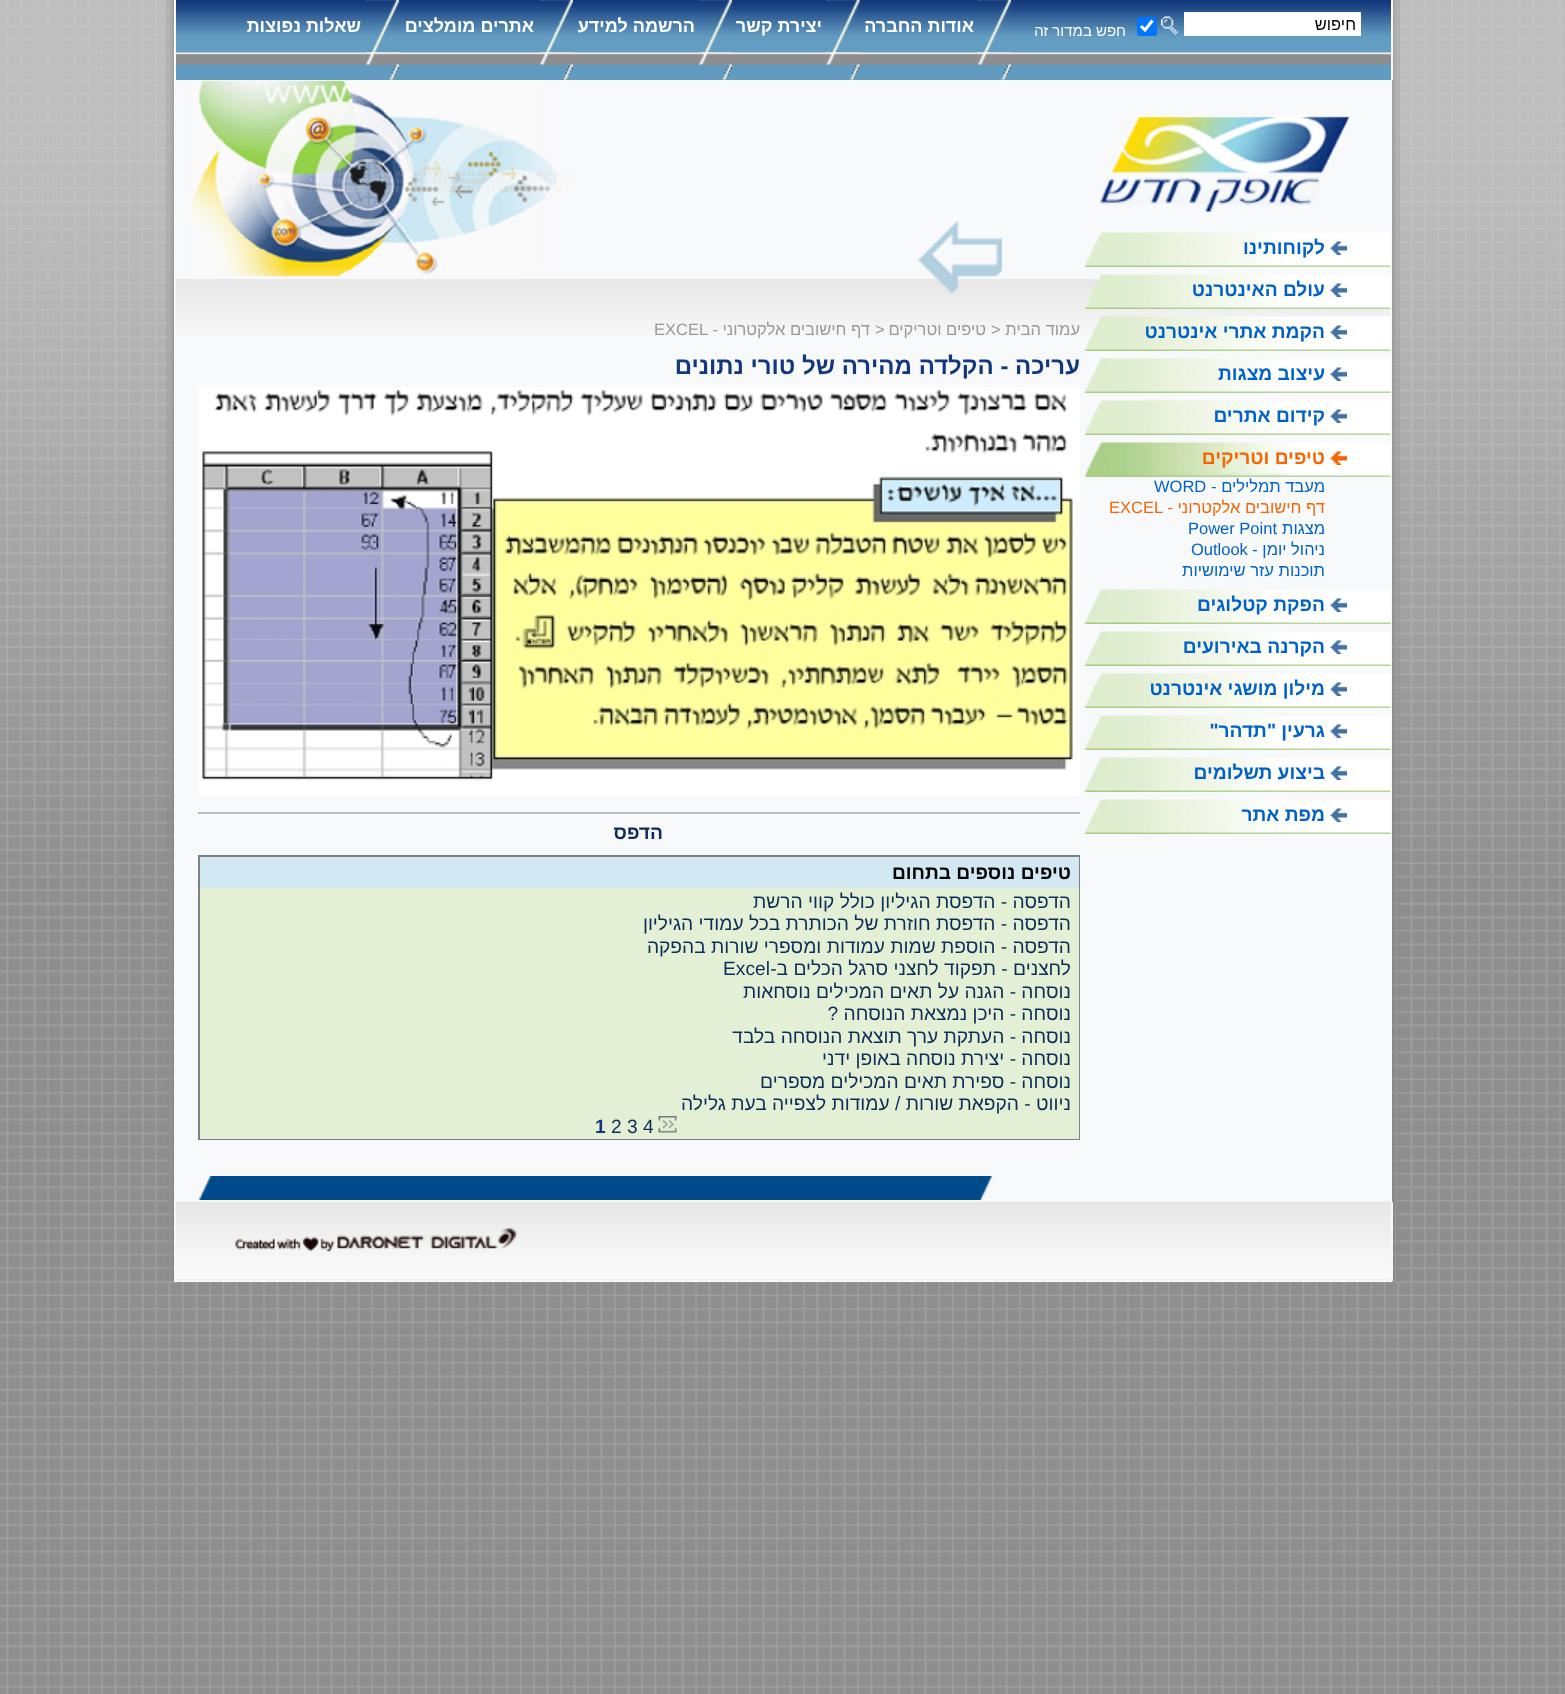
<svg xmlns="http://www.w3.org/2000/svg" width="1565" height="1694">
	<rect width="100%" height="100%" fill="#FFFFFF" />
	<image x="0" y="904" width="1565" height="790" href="assets/img1.png" />
	<image x="0" y="0" width="1565" height="905" href="assets/img2.png" />
	<image x="1392" y="0" width="8" height="1281" href="assets/img3.png" />
	<image x="1392" y="0" width="8" height="808" href="assets/img4.png" />
	<rect x="176" y="64" width="1215" height="16" fill="#629BC0" />
	<image x="176" y="0" width="1215" height="65" href="assets/img5.png" />
	<rect x="1391" y="0" width="2" height="80" fill="#F8F9FB" />
	<rect x="174" y="0" width="2" height="80" fill="#F8F9FB" />
	<rect x="1184" y="12" width="177" height="24" fill="#FFFFFF" />
	<text x="1356" y="30" font-family="Liberation Sans" font-size="16.5" direction="rtl" fill="#000000">חיפוש</text>
	<image x="1161" y="16" width="17" height="19" href="assets/img6.png" />
	<rect x="1137" y="17" width="20" height="19" rx="3" fill="#0075FF" />
	<path d="M1141 26L1145 30L1152.5 20.5" fill="none" stroke="#FFFFFF" stroke-width="3.1" />
	<text x="1126" y="36" font-family="Liberation Sans" font-size="15" direction="rtl" fill="#FFFFFF">חפש במדור זה</text>
	<image x="978" y="0" width="33" height="80" href="assets/img7.png" />
	<text x="974" y="32" font-family="Liberation Sans" font-size="18" font-weight="700" direction="rtl" fill="#FFFFFF">אודות החברה</text>
	<image x="826" y="0" width="34" height="80" href="assets/img8.png" />
	<text x="822" y="32" font-family="Liberation Sans" font-size="18" font-weight="700" direction="rtl" fill="#FFFFFF">יצירת קשר</text>
	<image x="699" y="0" width="33" height="80" href="assets/img9.png" />
	<text x="695" y="32" font-family="Liberation Sans" font-size="18" font-weight="700" direction="rtl" fill="#FFFFFF">הרשמה למידע</text>
	<image x="540" y="0" width="33" height="80" href="assets/img10.png" />
	<text x="534" y="32" font-family="Liberation Sans" font-size="18" font-weight="700" direction="rtl" fill="#FFFFFF">אתרים מומלצים</text>
	<image x="366" y="0" width="33" height="80" href="assets/img11.png" />
	<text x="361" y="32" font-family="Liberation Sans" font-size="18" font-weight="700" direction="rtl" fill="#FFFFFF">שאלות נפוצות</text>
	<image x="166" y="0" width="8" height="1281" href="assets/img12.png" />
	<image x="166" y="0" width="8" height="807" href="assets/img13.png" />
	<rect x="176" y="82" width="1214" height="1118" fill="#F8F9FB" />
	<image x="176" y="279" width="1214" height="57" href="assets/img14.png" />
	<rect x="175" y="81" width="1216" height="1120" fill="none" stroke="#F8F9FB" stroke-width="2" />
	<image x="198" y="1176" width="795" height="24" href="assets/img15.png" />
	<image x="1099" y="115" width="253" height="98" href="assets/img16.png" />
	<image x="1084" y="232" width="307" height="35" href="assets/img17.png" />
	<image x="1330" y="241" width="17" height="14" href="assets/img18.png" />
	<text x="1325" y="254" font-family="Liberation Sans" font-size="19.2" font-weight="700" direction="rtl" fill="#0062C7">לקוחותינו</text>
	<image x="1084" y="274" width="307" height="35" href="assets/img19.png" />
	<image x="1330" y="283" width="17" height="14" href="assets/img18.png" />
	<text x="1325" y="296" font-family="Liberation Sans" font-size="19.2" font-weight="700" direction="rtl" fill="#0062C7">עולם האינטרנט</text>
	<image x="1084" y="316" width="307" height="35" href="assets/img20.png" />
	<image x="1330" y="325" width="17" height="14" href="assets/img18.png" />
	<text x="1325" y="338" font-family="Liberation Sans" font-size="19.2" font-weight="700" direction="rtl" fill="#0062C7">הקמת אתרי אינטרנט</text>
	<image x="1084" y="358" width="307" height="35" href="assets/img17.png" />
	<image x="1330" y="367" width="17" height="14" href="assets/img18.png" />
	<text x="1325" y="380" font-family="Liberation Sans" font-size="19.2" font-weight="700" direction="rtl" fill="#0062C7">עיצוב מצגות</text>
	<image x="1084" y="400" width="307" height="35" href="assets/img17.png" />
	<image x="1330" y="409" width="17" height="14" href="assets/img18.png" />
	<text x="1325" y="422" font-family="Liberation Sans" font-size="19.2" font-weight="700" direction="rtl" fill="#0062C7">קידום אתרים</text>
	<image x="1084" y="442" width="307" height="35" href="assets/img21.png" />
	<image x="1330" y="451" width="17" height="14" href="assets/img22.png" />
	<text x="1325" y="464" font-family="Liberation Sans" font-size="19.2" font-weight="700" direction="rtl" fill="#F26603">טיפים וטריקים</text>
	<text x="1325" y="492" font-family="Liberation Sans" font-size="16.5" direction="rtl" fill="#0062C7">מעבד תמלילים -</text>
	<text x="1154" y="492" font-family="Liberation Sans" font-size="16.5" fill="#0062C7">WORD</text>
	<text x="1325" y="513" font-family="Liberation Sans" font-size="16.5" direction="rtl" fill="#F26603">דף חישובים אלקטרוני -</text>
	<text x="1109" y="513" font-family="Liberation Sans" font-size="16.5" fill="#F26603">EXCEL</text>
	<text x="1325" y="534" font-family="Liberation Sans" font-size="16.5" direction="rtl" fill="#0062C7">מצגות</text>
	<text x="1188" y="534" font-family="Liberation Sans" font-size="16.5" fill="#0062C7">Power Point</text>
	<text x="1325" y="555" font-family="Liberation Sans" font-size="16.5" direction="rtl" fill="#0062C7">ניהול יומן -</text>
	<text x="1191" y="555" font-family="Liberation Sans" font-size="16.5" fill="#0062C7">Outlook</text>
	<text x="1325" y="576" font-family="Liberation Sans" font-size="16.5" direction="rtl" fill="#0062C7">תוכנות עזר שימושיות</text>
	<image x="1084" y="589" width="307" height="35" href="assets/img17.png" />
	<image x="1330" y="598" width="17" height="14" href="assets/img18.png" />
	<text x="1325" y="611" font-family="Liberation Sans" font-size="19.2" font-weight="700" direction="rtl" fill="#0062C7">הפקת קטלוגים</text>
	<image x="1084" y="631" width="307" height="35" href="assets/img17.png" />
	<image x="1330" y="640" width="17" height="14" href="assets/img18.png" />
	<text x="1325" y="653" font-family="Liberation Sans" font-size="19.2" font-weight="700" direction="rtl" fill="#0062C7">הקרנה באירועים</text>
	<image x="1084" y="673" width="307" height="35" href="assets/img17.png" />
	<image x="1330" y="682" width="17" height="14" href="assets/img18.png" />
	<text x="1325" y="695" font-family="Liberation Sans" font-size="19.2" font-weight="700" direction="rtl" fill="#0062C7">מילון מושגי אינטרנט</text>
	<image x="1084" y="715" width="307" height="35" href="assets/img17.png" />
	<image x="1330" y="724" width="17" height="14" href="assets/img18.png" />
	<text x="1325" y="737" font-family="Liberation Sans" font-size="19.2" font-weight="700" direction="rtl" fill="#0062C7">גרעין "תדהר"</text>
	<image x="1084" y="757" width="307" height="35" href="assets/img17.png" />
	<image x="1330" y="766" width="17" height="14" href="assets/img18.png" />
	<text x="1325" y="779" font-family="Liberation Sans" font-size="19.2" font-weight="700" direction="rtl" fill="#0062C7">ביצוע תשלומים</text>
	<image x="1084" y="799" width="307" height="35" href="assets/img17.png" />
	<image x="1330" y="808" width="17" height="14" href="assets/img18.png" />
	<text x="1325" y="821" font-family="Liberation Sans" font-size="19.2" font-weight="700" direction="rtl" fill="#0062C7">מפת אתר</text>
	<image x="189" y="81" width="813" height="214" href="assets/img23.png" />
	<text x="1080" y="335" font-family="Liberation Sans" font-size="16.5" direction="rtl" fill="#999999">עמוד הבית</text>
	<text x="991" y="335" font-family="Liberation Sans" font-size="16.5" fill="#999999">&gt;</text>
	<text x="986" y="335" font-family="Liberation Sans" font-size="16.5" direction="rtl" fill="#999999">טיפים וטריקים</text>
	<text x="875" y="335" font-family="Liberation Sans" font-size="16.5" fill="#999999">&gt;</text>
	<text x="870" y="335" font-family="Liberation Sans" font-size="16.5" direction="rtl" fill="#999999">דף חישובים אלקטרוני -</text>
	<text x="654" y="335" font-family="Liberation Sans" font-size="16.5" fill="#999999">EXCEL</text>
	<text x="1080" y="374" font-family="Liberation Sans" font-size="24" font-weight="700" direction="rtl" fill="#11377E">עריכה - הקלדה מהירה של טורי נתונים</text>
	<image x="198" y="387" width="882" height="409" href="assets/img24.png" />
	<rect x="198" y="812" width="882" height="2" fill="#BCBCBC" />
	<text x="663" y="839" font-family="Liberation Sans" font-size="19.2" font-weight="700" direction="rtl" fill="#0C2D58">הדפס</text>
	<rect x="199" y="856" width="880" height="283" fill="none" stroke="#808080" stroke-width="2" />
	<rect x="200" y="857" width="879" height="31" fill="#D2E9F3" />
	<text x="1071" y="879" font-family="Liberation Sans" font-size="19.2" font-weight="700" direction="rtl" fill="#000000">טיפים נוספים בתחום</text>
	<rect x="200" y="888" width="879" height="251" fill="#E3F0D6" />
	<g font-family="Liberation Sans" font-size="19.2" direction="rtl" fill="#0C2D58">
		<text x="1071" y="908">הדפסה - הדפסת הגיליון כולל קווי הרשת</text>
		<text x="1071" y="930">הדפסה - הדפסת חוזרת של הכותרת בכל עמודי הגיליון</text>
		<text x="1071" y="953">הדפסה - הוספת שמות עמודות ומספרי שורות בהפקה</text>
		<text x="1071" y="975">לחצנים - תפקוד לחצני סרגל הכלים ב-</text>
	</g>
	<text x="723" y="975" font-family="Liberation Sans" font-size="19.2" fill="#0C2D58">Excel</text>
	<g font-family="Liberation Sans" font-size="19.2" direction="rtl" fill="#0C2D58">
		<text x="1071" y="998">נוסחה - הגנה על תאים המכילים נוסחאות</text>
		<text x="1071" y="1020">נוסחה - היכן נמצאת הנוסחה ?</text>
		<text x="1071" y="1043">נוסחה - העתקת ערך תוצאת הנוסחה בלבד</text>
		<text x="1071" y="1065">נוסחה - יצירת נוסחה באופן ידני</text>
		<text x="1071" y="1088">נוסחה - ספירת תאים המכילים מספרים</text>
		<text x="1071" y="1110">ניווט - הקפאת שורות / עמודות לצפייה בעת גלילה</text>
	</g>
	<image x="658" y="1116" width="19" height="17" href="assets/img25.png" />
	<text x="611" y="1133" font-family="Liberation Sans" font-size="19.2" fill="#0C2D58">2 3 4</text>
	<text x="595" y="1133" font-family="Liberation Sans" font-size="19.2" font-weight="700" fill="#11377E">1</text>
	<image x="174" y="1201" width="1218" height="79" href="assets/img26.png" />
	<rect x="1391" y="1202" width="2" height="79" fill="#F8F9FB" />
	<rect x="174" y="1280" width="1218" height="2" fill="#F8F9FB" />
	<rect x="174" y="1202" width="2" height="79" fill="#F8F9FB" />
	<image x="235" y="1228" width="282" height="24" href="assets/img27.png" />
</svg>
